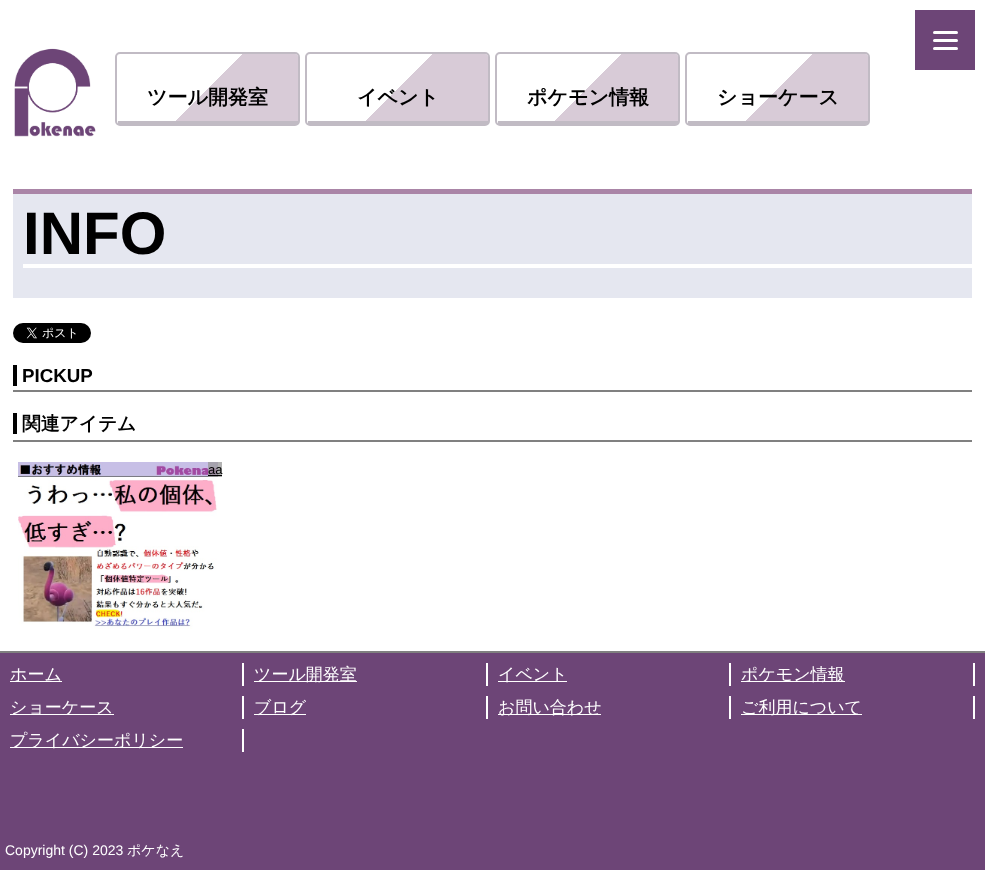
<svg xmlns="http://www.w3.org/2000/svg" width="985" height="872">
	<defs>
		<linearGradient id="g1" gradientUnits="userSpaceOnUse" x1="146" y1="26" x2="270" y2="150"><stop offset="0" stop-color="#FFFFFF" /><stop offset="0.5" stop-color="#FFFFFF" /><stop offset="0.5" stop-color="#D8CBD7" /><stop offset="1" stop-color="#D8CBD7" /></linearGradient>
		<linearGradient id="g2" gradientUnits="userSpaceOnUse" x1="336" y1="26" x2="460" y2="150"><stop offset="0" stop-color="#FFFFFF" /><stop offset="0.5" stop-color="#FFFFFF" /><stop offset="0.5" stop-color="#D8CBD7" /><stop offset="1" stop-color="#D8CBD7" /></linearGradient>
		<linearGradient id="g3" gradientUnits="userSpaceOnUse" x1="526" y1="26" x2="650" y2="150"><stop offset="0" stop-color="#FFFFFF" /><stop offset="0.5" stop-color="#FFFFFF" /><stop offset="0.5" stop-color="#D8CBD7" /><stop offset="1" stop-color="#D8CBD7" /></linearGradient>
		<linearGradient id="g4" gradientUnits="userSpaceOnUse" x1="716" y1="26" x2="840" y2="150"><stop offset="0" stop-color="#FFFFFF" /><stop offset="0.5" stop-color="#FFFFFF" /><stop offset="0.5" stop-color="#D8CBD7" /><stop offset="1" stop-color="#D8CBD7" /></linearGradient>
	</defs>
	<rect width="100%" height="100%" fill="#FFFFFF" />
	<rect x="915" y="10" width="60" height="60" fill="#6D4577" />
	<rect x="933" y="39" width="25" height="3" rx="1.5" fill="#FFFFFF" />
	<rect x="933" y="31" width="25" height="3" rx="1.5" fill="#FFFFFF" />
	<rect x="933" y="47" width="25" height="3" rx="1.5" fill="#FFFFFF" />
	<image x="14" y="48" width="82" height="89" href="assets/img1.png" />
	<path d="M120 54H295C297 54 298 55 298 57V121H117V57C117 55 118 54 120 54Z" fill="url(#g1)" />
	<rect x="116" y="53" width="183" height="72" rx="4" fill="none" stroke="#C1BBC4" stroke-width="2" />
	<rect x="118" y="121" width="180" height="3" fill="#C1BBC4" />
	<text x="147" y="104" font-family="WenQuanYi Zen Hei" font-size="20" font-weight="700" fill="#000000">ツール開発室</text>
	<path d="M310 54H485C487 54 488 55 488 57V121H307V57C307 55 308 54 310 54Z" fill="url(#g2)" />
	<rect x="306" y="53" width="183" height="72" rx="4" fill="none" stroke="#C1BBC4" stroke-width="2" />
	<rect x="308" y="121" width="180" height="3" fill="#C1BBC4" />
	<text x="357" y="104" font-family="WenQuanYi Zen Hei" font-size="20" font-weight="700" fill="#000000">イベント</text>
	<path d="M500 54H675C677 54 678 55 678 57V121H497V57C497 55 498 54 500 54Z" fill="url(#g3)" />
	<rect x="496" y="53" width="183" height="72" rx="4" fill="none" stroke="#C1BBC4" stroke-width="2" />
	<rect x="498" y="121" width="180" height="3" fill="#C1BBC4" />
	<text x="527" y="104" font-family="WenQuanYi Zen Hei" font-size="20" font-weight="700" fill="#000000">ポケモン情報</text>
	<path d="M690 54H865C867 54 868 55 868 57V121H687V57C687 55 688 54 690 54Z" fill="url(#g4)" />
	<rect x="686" y="53" width="183" height="72" rx="4" fill="none" stroke="#C1BBC4" stroke-width="2" />
	<rect x="688" y="121" width="180" height="3" fill="#C1BBC4" />
	<text x="717" y="104" font-family="WenQuanYi Zen Hei" font-size="20" font-weight="700" fill="#000000">ショーケース</text>
	<rect x="13" y="194" width="959" height="104" fill="#E5E7F0" />
	<rect x="13" y="189" width="959" height="5" fill="#AA85A7" />
	<rect x="23" y="264" width="949" height="4" fill="#FFFFFF" />
	<text x="23" y="254" font-family="Liberation Sans" font-size="60" font-weight="700" fill="#000000">INFO</text>
	<image x="13" y="323" width="78" height="20" href="assets/img2.png" />
	<rect x="13" y="390" width="959" height="2" fill="#808080" />
	<text x="22" y="382" font-family="Liberation Sans" font-size="18.75" font-weight="700" fill="#000000">PICKUP</text>
	<rect x="13" y="365" width="4" height="21" fill="#000000" />
	<rect x="13" y="440" width="959" height="2" fill="#808080" />
	<text x="22" y="430" font-family="WenQuanYi Zen Hei" font-size="18.75" font-weight="700" fill="#000000">関連アイテム</text>
	<rect x="13" y="413" width="4" height="21" fill="#000000" />
	<image x="18" y="462" width="200" height="167" href="assets/img3.png" />
	<rect x="208" y="462" width="14" height="15" fill="#999999" fill-opacity="0.74" />
	<text x="208" y="474" font-family="Liberation Sans" font-size="13" fill="#000000">aa</text>
	<rect x="208" y="475" width="14" height="1" fill="#000000" />
	<rect x="0" y="653" width="985" height="217" fill="#6D4577" />
	<rect x="0" y="651" width="985" height="2" fill="#808080" />
	<rect x="242" y="663" width="2" height="23" fill="#FFFFFF" />
	<rect x="10" y="681" width="52" height="1" fill="#FFFFFF" />
	<text x="10" y="680" font-family="WenQuanYi Zen Hei" font-size="17" font-weight="500" fill="#FFFFFF">ホーム</text>
	<rect x="486" y="663" width="2" height="23" fill="#FFFFFF" />
	<rect x="254" y="681" width="103" height="1" fill="#FFFFFF" />
	<text x="254" y="680" font-family="WenQuanYi Zen Hei" font-size="17" font-weight="500" fill="#FFFFFF">ツール開発室</text>
	<rect x="729" y="663" width="2" height="23" fill="#FFFFFF" />
	<rect x="498" y="681" width="69" height="1" fill="#FFFFFF" />
	<text x="498" y="680" font-family="WenQuanYi Zen Hei" font-size="17" font-weight="500" fill="#FFFFFF">イベント</text>
	<rect x="973" y="663" width="2" height="23" fill="#FFFFFF" />
	<rect x="741" y="681" width="104" height="1" fill="#FFFFFF" />
	<text x="741" y="680" font-family="WenQuanYi Zen Hei" font-size="17" font-weight="500" fill="#FFFFFF">ポケモン情報</text>
	<rect x="242" y="696" width="2" height="23" fill="#FFFFFF" />
	<rect x="10" y="714" width="104" height="1" fill="#FFFFFF" />
	<text x="10" y="713" font-family="WenQuanYi Zen Hei" font-size="17" font-weight="500" fill="#FFFFFF">ショーケース</text>
	<rect x="486" y="696" width="2" height="23" fill="#FFFFFF" />
	<rect x="254" y="714" width="52" height="1" fill="#FFFFFF" />
	<text x="254" y="713" font-family="WenQuanYi Zen Hei" font-size="17" font-weight="500" fill="#FFFFFF">ブログ</text>
	<rect x="729" y="696" width="2" height="23" fill="#FFFFFF" />
	<rect x="498" y="714" width="103" height="1" fill="#FFFFFF" />
	<text x="498" y="713" font-family="WenQuanYi Zen Hei" font-size="17" font-weight="500" fill="#FFFFFF">お問い合わせ</text>
	<rect x="973" y="696" width="2" height="23" fill="#FFFFFF" />
	<rect x="741" y="714" width="121" height="1" fill="#FFFFFF" />
	<text x="741" y="713" font-family="WenQuanYi Zen Hei" font-size="17" font-weight="500" fill="#FFFFFF">ご利用について</text>
	<rect x="242" y="729" width="2" height="23" fill="#FFFFFF" />
	<rect x="10" y="747" width="173" height="1" fill="#FFFFFF" />
	<text x="10" y="746" font-family="WenQuanYi Zen Hei" font-size="17" font-weight="500" fill="#FFFFFF">プライバシーポリシー</text>
	<text x="5" y="855" font-family="Liberation Sans" font-size="14" fill="#FFFFFF">Copyright (C) 2023</text>
	<text x="127" y="855" font-family="WenQuanYi Zen Hei" font-size="14" font-weight="500" fill="#FFFFFF">ポケなえ</text>
</svg>
